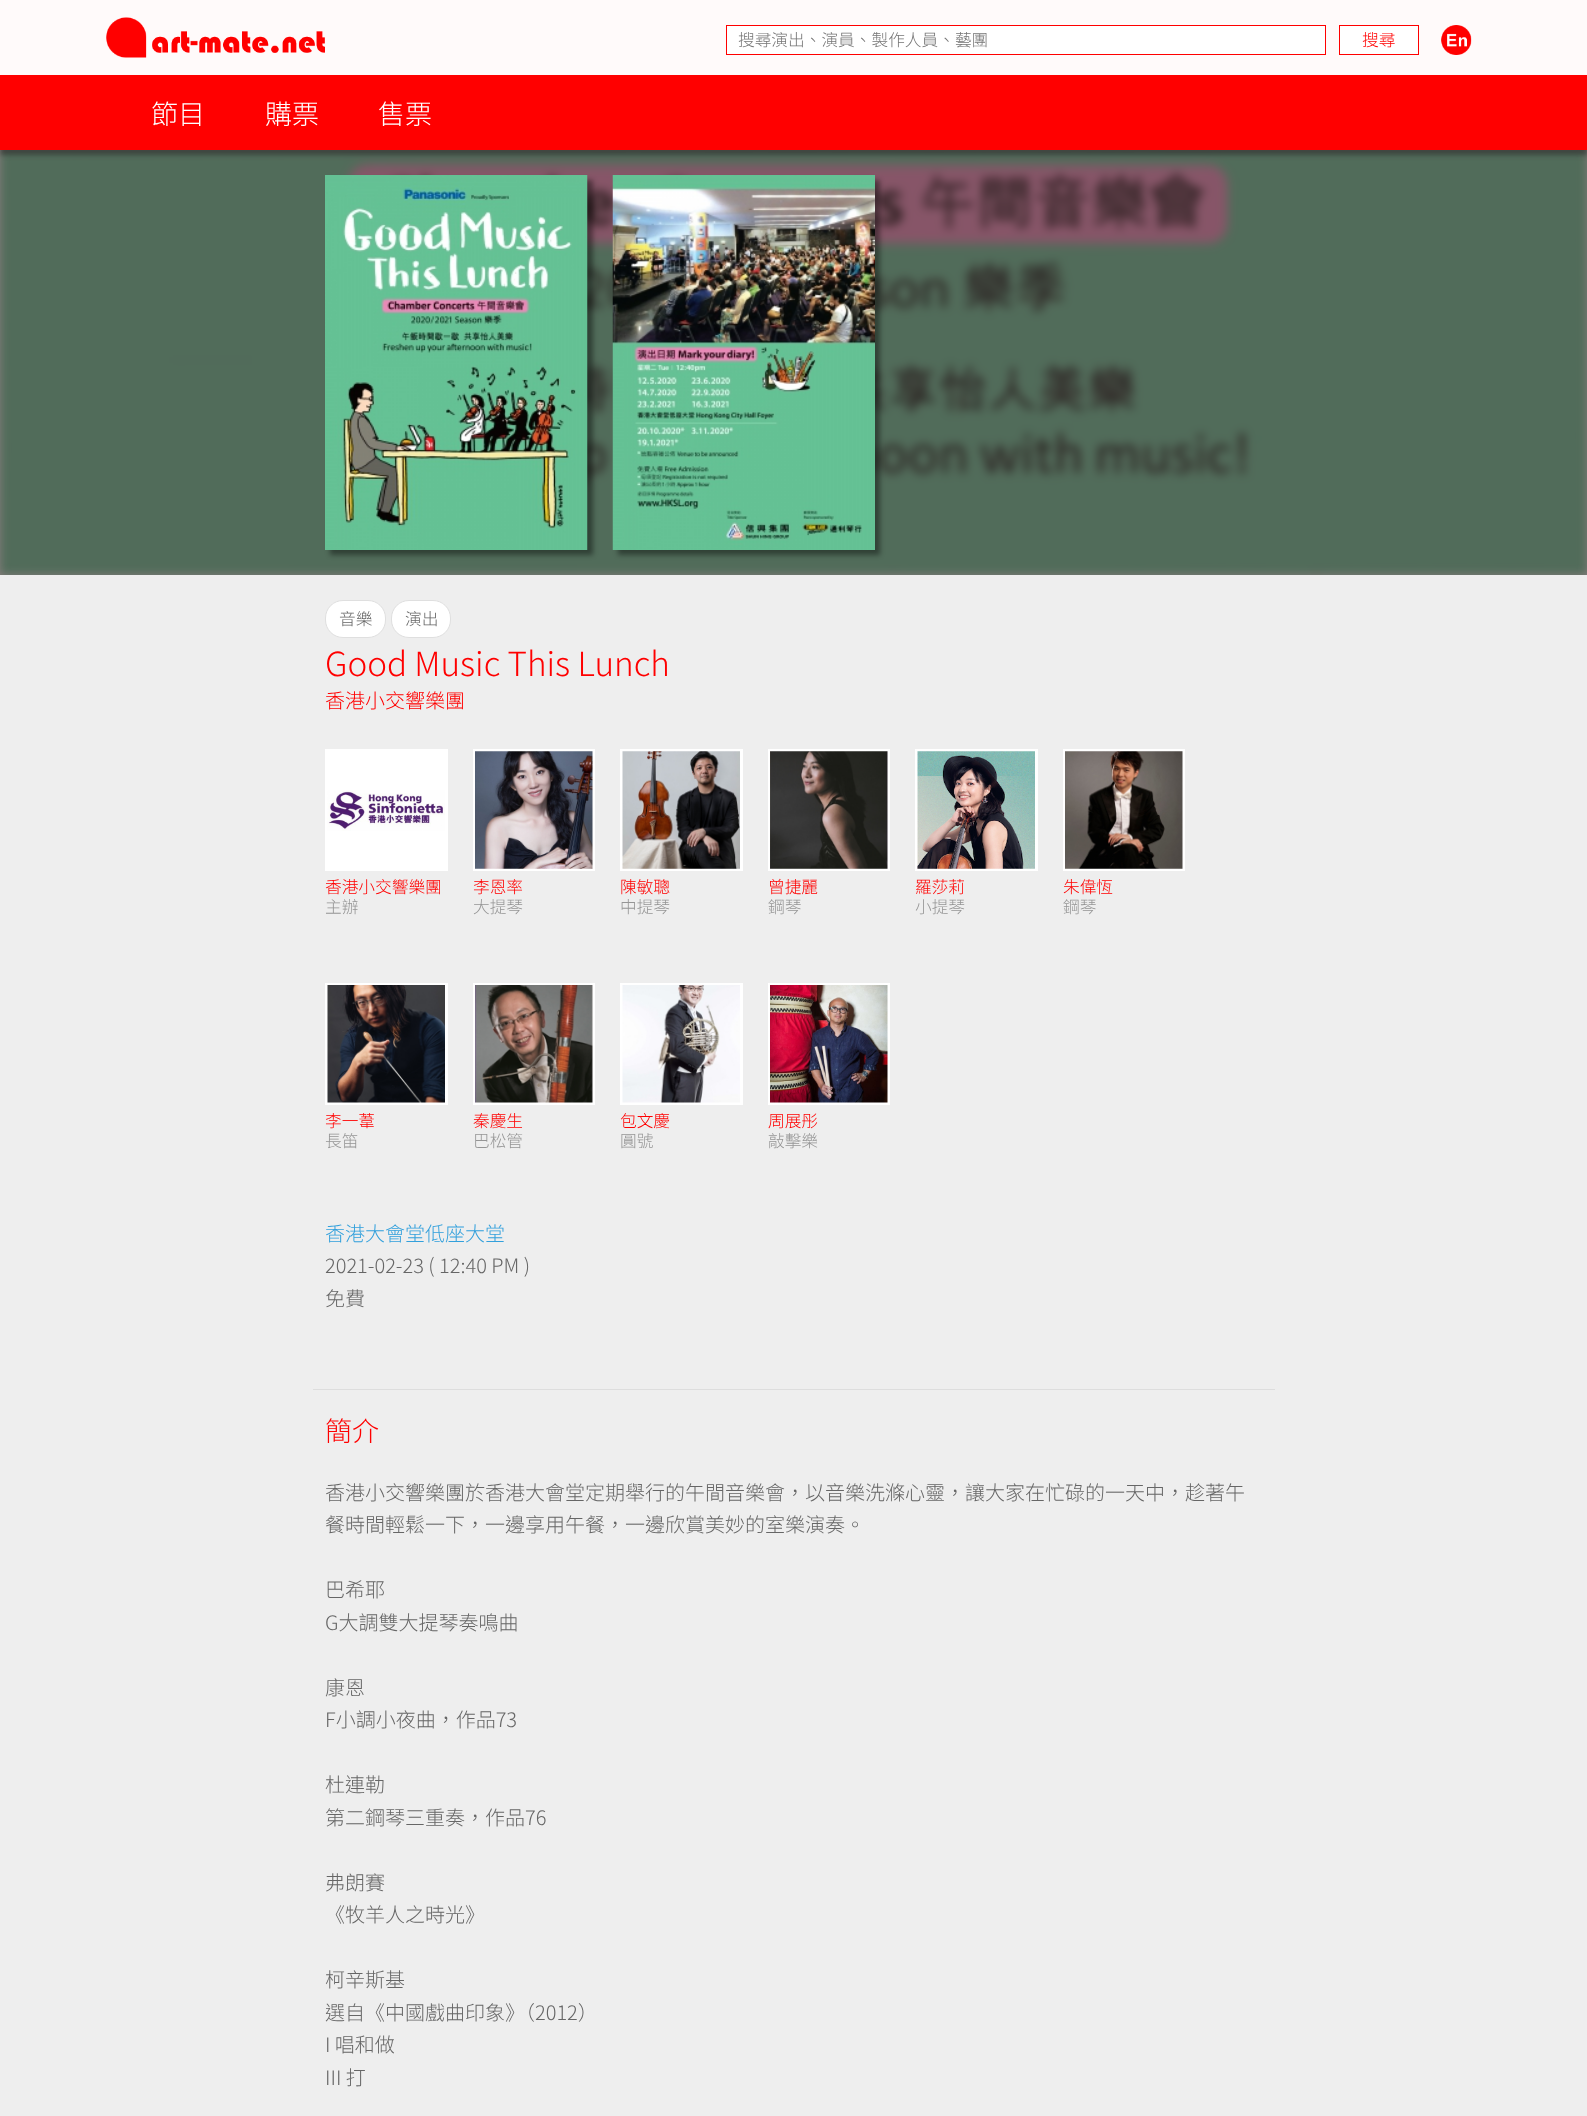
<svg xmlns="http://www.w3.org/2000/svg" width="1587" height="2116">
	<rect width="100%" height="100%" fill="#EEEEEE" />
	<rect x="0" y="150" width="1587" height="425" fill="#887E7E" />
	<rect x="0" y="0" width="1587" height="75" fill="#FFFAFA" />
	<image x="106" y="17" width="219" height="41" href="assets/img1.png" />
	<rect x="726.5" y="25.5" width="599" height="29" fill="#FFFFFF" stroke="#FF0000" />
	<text x="738" y="46" font-family="Noto Sans HK" font-size="16.7" font-weight="100" fill="#757575">搜尋演出、演員、製作人員、藝團</text>
	<rect x="1339.5" y="25.5" width="79" height="29" fill="#FFFFFF" stroke="#FF0000" />
	<text x="1362" y="46" font-family="Noto Sans HK" font-size="16.7" font-weight="100" fill="#FF0000">搜尋</text>
	<image x="1441" y="25" width="31" height="30" href="assets/img2.png" />
	<image x="0" y="150" width="1587" height="425" href="assets/img3.png" />
	<rect x="0" y="80" width="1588" height="75" fill="#000000" fill-opacity="0.4" filter="blur(2.5px)" />
	<rect x="0" y="75" width="1587" height="75" fill="#FF0000" />
	<g font-family="Noto Sans HK" font-size="27" font-weight="100" fill="#FFFFFF">
		<text x="151" y="124">節目</text>
		<text x="265" y="124">購票</text>
		<text x="378" y="124">售票</text>
	</g>
	<rect x="330" y="180" width="263" height="375" fill="#000000" fill-opacity="0.4" filter="blur(2.5px)" />
	<image x="325" y="175" width="263" height="375" href="assets/img4.png" />
	<rect x="618" y="180" width="262" height="375" fill="#000000" fill-opacity="0.4" filter="blur(2.5px)" />
	<image x="612" y="175" width="263" height="375" href="assets/img5.png" />
	<rect x="325.5" y="600.5" width="60" height="37" rx="17.5" fill="#FFFFFF" stroke="#DFDFDF" />
	<text x="339" y="625" font-family="Noto Sans HK" font-size="16.7" font-weight="100" fill="#666666">音樂</text>
	<rect x="391.5" y="600.5" width="59" height="37" rx="17.5" fill="#FFFFFF" stroke="#DFDFDF" />
	<text x="405" y="625" font-family="Noto Sans HK" font-size="16.7" font-weight="100" fill="#666666">演出</text>
	<text x="325" y="676" font-family="Noto Sans HK" font-size="33.25" font-weight="100" fill="#FF0000">Good Music This Lunch</text>
	<text x="325" y="708" font-family="Noto Sans HK" font-size="20" font-weight="100" fill="#FF0000">香港小交響樂團</text>
	<rect x="325" y="749" width="123" height="122" fill="#FFFFFF" />
	<image x="327" y="790" width="118" height="41" href="assets/img6.png" />
	<text x="325" y="893" font-family="Noto Sans HK" font-size="16.7" font-weight="100" fill="#FF0000">香港小交響樂團</text>
	<text x="325" y="913" font-family="Noto Sans HK" font-size="16.7" font-weight="100" fill="#959595">主辦</text>
	<rect x="473" y="749" width="122" height="122" fill="#FFFFFF" />
	<image x="475" y="751" width="118" height="118" href="assets/img7.png" />
	<text x="473" y="893" font-family="Noto Sans HK" font-size="16.7" font-weight="100" fill="#FF0000">李恩率</text>
	<text x="473" y="913" font-family="Noto Sans HK" font-size="16.7" font-weight="100" fill="#959595">大提琴</text>
	<rect x="620" y="749" width="123" height="122" fill="#FFFFFF" />
	<image x="622" y="751" width="118" height="118" href="assets/img8.png" />
	<text x="620" y="893" font-family="Noto Sans HK" font-size="16.7" font-weight="100" fill="#FF0000">陳敏聰</text>
	<text x="620" y="913" font-family="Noto Sans HK" font-size="16.7" font-weight="100" fill="#959595">中提琴</text>
	<rect x="768" y="749" width="122" height="122" fill="#FFFFFF" />
	<image x="770" y="751" width="118" height="118" href="assets/img9.png" />
	<text x="768" y="893" font-family="Noto Sans HK" font-size="16.7" font-weight="100" fill="#FF0000">曾捷麗</text>
	<text x="768" y="913" font-family="Noto Sans HK" font-size="16.7" font-weight="100" fill="#959595">鋼琴</text>
	<rect x="915" y="749" width="123" height="122" fill="#FFFFFF" />
	<image x="917" y="751" width="118" height="118" href="assets/img10.png" />
	<text x="915" y="893" font-family="Noto Sans HK" font-size="16.7" font-weight="100" fill="#FF0000">羅莎莉</text>
	<text x="915" y="913" font-family="Noto Sans HK" font-size="16.7" font-weight="100" fill="#959595">小提琴</text>
	<rect x="1063" y="749" width="122" height="122" fill="#FFFFFF" />
	<image x="1065" y="751" width="118" height="118" href="assets/img11.png" />
	<text x="1063" y="893" font-family="Noto Sans HK" font-size="16.7" font-weight="100" fill="#FF0000">朱偉恆</text>
	<text x="1063" y="913" font-family="Noto Sans HK" font-size="16.7" font-weight="100" fill="#959595">鋼琴</text>
	<rect x="325" y="983" width="123" height="122" fill="#FFFFFF" />
	<image x="327" y="985" width="118" height="118" href="assets/img12.png" />
	<text x="325" y="1127" font-family="Noto Sans HK" font-size="16.7" font-weight="100" fill="#FF0000">李一葦</text>
	<text x="325" y="1147" font-family="Noto Sans HK" font-size="16.7" font-weight="100" fill="#959595">長笛</text>
	<rect x="473" y="983" width="122" height="122" fill="#FFFFFF" />
	<image x="475" y="985" width="118" height="118" href="assets/img13.png" />
	<text x="473" y="1127" font-family="Noto Sans HK" font-size="16.7" font-weight="100" fill="#FF0000">秦慶生</text>
	<text x="473" y="1147" font-family="Noto Sans HK" font-size="16.7" font-weight="100" fill="#959595">巴松管</text>
	<rect x="620" y="983" width="123" height="122" fill="#FFFFFF" />
	<image x="622" y="985" width="118" height="118" href="assets/img14.png" />
	<text x="620" y="1127" font-family="Noto Sans HK" font-size="16.7" font-weight="100" fill="#FF0000">包文慶</text>
	<text x="620" y="1147" font-family="Noto Sans HK" font-size="16.7" font-weight="100" fill="#959595">圓號</text>
	<rect x="768" y="983" width="122" height="122" fill="#FFFFFF" />
	<image x="770" y="985" width="118" height="118" href="assets/img15.png" />
	<text x="768" y="1127" font-family="Noto Sans HK" font-size="16.7" font-weight="100" fill="#FF0000">周展彤</text>
	<text x="768" y="1147" font-family="Noto Sans HK" font-size="16.7" font-weight="100" fill="#959595">敲擊樂</text>
	<text x="325" y="1241" font-family="Noto Sans HK" font-size="20" font-weight="100" fill="#32A0DC">香港大會堂低座大堂</text>
	<g font-family="Noto Sans HK" font-size="20" font-weight="100" fill="#666666">
		<text x="325" y="1273">2021-02-23 ( 12:40 PM )</text>
		<text x="325" y="1306">免費</text>
	</g>
	<rect x="313" y="1389" width="962" height="1" fill="#DDDDDD" />
	<text x="325" y="1441" font-family="Noto Sans HK" font-size="27" font-weight="100" fill="#FF0000">簡介</text>
	<g font-family="Noto Sans HK" font-size="20" font-weight="100" fill="#666666">
		<text x="325" y="1500">香港小交響樂團於香港大會堂定期舉行的午間音樂會，以音樂洗滌心靈，讓大家在忙碌的一天中，趁著午</text>
		<text x="325" y="1532">餐時間輕鬆一下，一邊享用午餐，一邊欣賞美妙的室樂演奏。</text>
		<text x="325" y="1597">巴希耶</text>
		<text x="325" y="1630">G大調雙大提琴奏鳴曲</text>
		<text x="325" y="1695">康恩</text>
		<text x="325" y="1727">F小調小夜曲，作品73</text>
		<text x="325" y="1792">杜連勒</text>
		<text x="325" y="1825">第二鋼琴三重奏，作品76</text>
		<text x="325" y="1890">弗朗賽</text>
		<text x="325" y="1922">《牧羊人之時光》</text>
		<text x="325" y="1987">柯辛斯基</text>
		<text x="325" y="2020">選自《中國戲曲印象》（2012）</text>
		<text x="325" y="2052">I 唱和做</text>
		<text x="325" y="2085">III 打</text>
	</g>
</svg>
